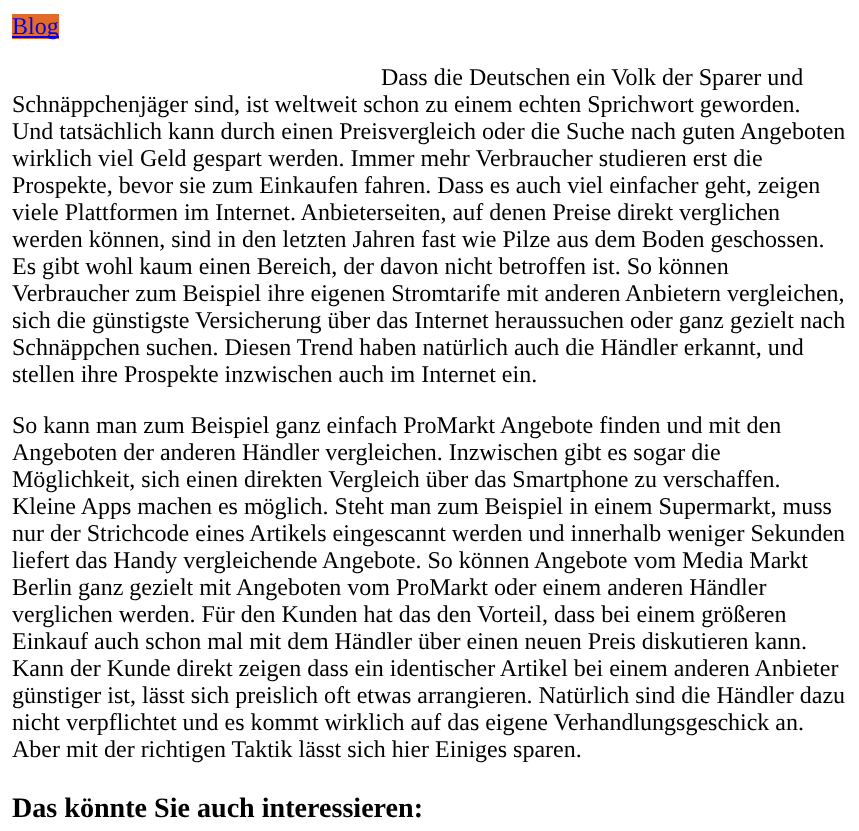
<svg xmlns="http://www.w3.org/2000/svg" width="859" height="831">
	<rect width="100%" height="100%" fill="#FFFFFF" />
	<rect x="12" y="14" width="47" height="25" fill="#E36B2A" />
	<rect x="12" y="36" width="47" height="2" fill="#0000EE" />
	<text x="12" y="34" font-family="Liberation Serif" font-size="24" fill="#0000EE">Blog</text>
	<g font-family="Liberation Serif" font-size="24" fill="#000000">
		<text x="381" y="85">Dass die Deutschen ein Volk der Sparer und</text>
		<text x="12" y="112">Schnäppchenjäger sind, ist weltweit schon zu einem echten Sprichwort geworden.</text>
		<text x="12" y="139">Und tatsächlich kann durch einen Preisvergleich oder die Suche nach guten Angeboten</text>
		<text x="12" y="166">wirklich viel Geld gespart werden. Immer mehr Verbraucher studieren erst die</text>
		<text x="12" y="193">Prospekte, bevor sie zum Einkaufen fahren. Dass es auch viel einfacher geht, zeigen</text>
		<text x="12" y="220">viele Plattformen im Internet. Anbieterseiten, auf denen Preise direkt verglichen</text>
		<text x="12" y="247">werden können, sind in den letzten Jahren fast wie Pilze aus dem Boden geschossen.</text>
		<text x="12" y="274">Es gibt wohl kaum einen Bereich, der davon nicht betroffen ist. So können</text>
		<text x="12" y="301">Verbraucher zum Beispiel ihre eigenen Stromtarife mit anderen Anbietern vergleichen,</text>
		<text x="12" y="328">sich die günstigste Versicherung über das Internet heraussuchen oder ganz gezielt nach</text>
		<text x="12" y="355">Schnäppchen suchen. Diesen Trend haben natürlich auch die Händler erkannt, und</text>
		<text x="12" y="382">stellen ihre Prospekte inzwischen auch im Internet ein.</text>
		<text x="12" y="433">So kann man zum Beispiel ganz einfach ProMarkt Angebote finden und mit den</text>
		<text x="12" y="460">Angeboten der anderen Händler vergleichen. Inzwischen gibt es sogar die</text>
		<text x="12" y="487">Möglichkeit, sich einen direkten Vergleich über das Smartphone zu verschaffen.</text>
		<text x="12" y="514">Kleine Apps machen es möglich. Steht man zum Beispiel in einem Supermarkt, muss</text>
		<text x="12" y="541">nur der Strichcode eines Artikels eingescannt werden und innerhalb weniger Sekunden</text>
		<text x="12" y="568">liefert das Handy vergleichende Angebote. So können Angebote vom Media Markt</text>
		<text x="12" y="595">Berlin ganz gezielt mit Angeboten vom ProMarkt oder einem anderen Händler</text>
		<text x="12" y="622">verglichen werden. Für den Kunden hat das den Vorteil, dass bei einem größeren</text>
		<text x="12" y="649">Einkauf auch schon mal mit dem Händler über einen neuen Preis diskutieren kann.</text>
		<text x="12" y="676">Kann der Kunde direkt zeigen dass ein identischer Artikel bei einem anderen Anbieter</text>
		<text x="12" y="703">günstiger ist, lässt sich preislich oft etwas arrangieren. Natürlich sind die Händler dazu</text>
		<text x="12" y="730">nicht verpflichtet und es kommt wirklich auf das eigene Verhandlungsgeschick an.</text>
		<text x="12" y="757">Aber mit der richtigen Taktik lässt sich hier Einiges sparen.</text>
	</g>
	<text x="12" y="817" font-family="Liberation Serif" font-size="28.1" font-weight="700" fill="#000000">Das könnte Sie auch interessieren:</text>
</svg>
